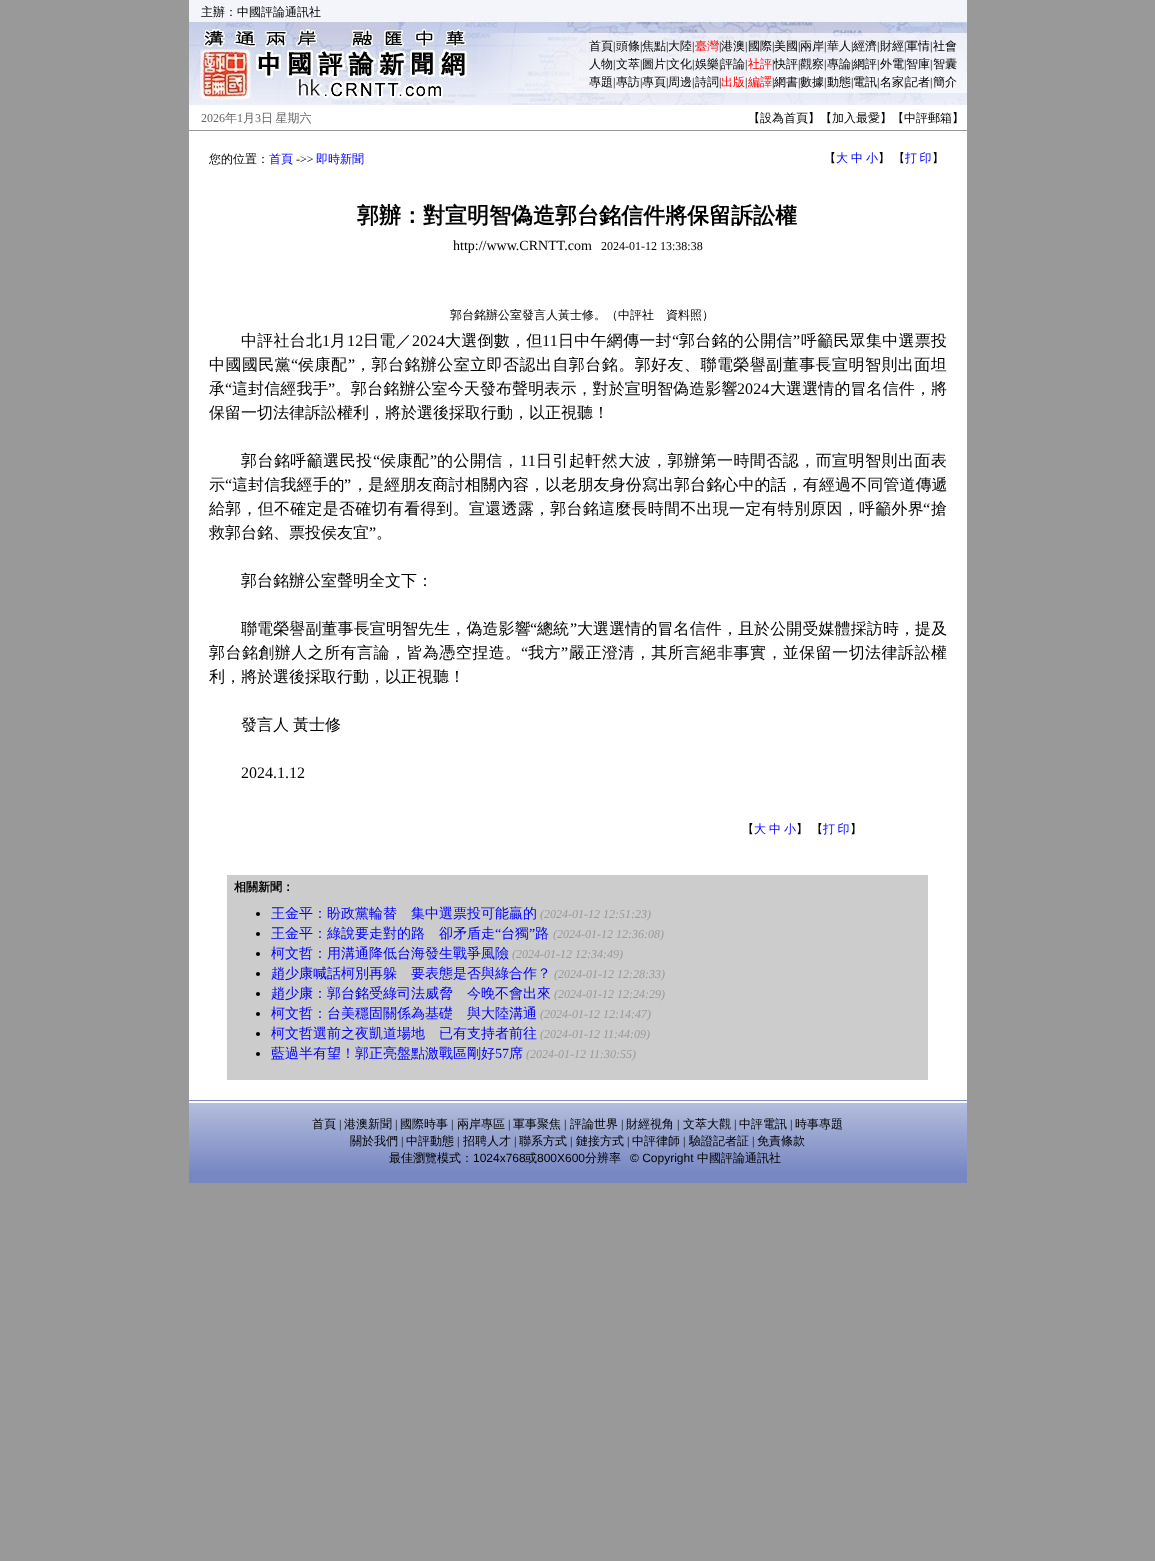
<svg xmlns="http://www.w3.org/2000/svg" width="1155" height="1561">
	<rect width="100%" height="100%" fill="#999999" />
	<image x="189" y="0" width="778" height="105" href="assets/img1.png" />
	<g font-family="WenQuanYi Zen Hei" font-size="12" font-weight="500" fill="#000000">
		<text x="201" y="16">主辦：中國評論通訊社</text>
		<text x="589" y="50">首頁</text>
	</g>
	<text x="613" y="50" font-family="Liberation Serif" font-size="12" fill="#000000">|</text>
	<text x="616" y="50" font-family="WenQuanYi Zen Hei" font-size="12" font-weight="500" fill="#000000">頭條</text>
	<text x="640" y="50" font-family="Liberation Serif" font-size="12" fill="#000000">|</text>
	<text x="642" y="50" font-family="WenQuanYi Zen Hei" font-size="12" font-weight="500" fill="#000000">焦點</text>
	<text x="666" y="50" font-family="Liberation Serif" font-size="12" fill="#000000">|</text>
	<text x="668" y="50" font-family="WenQuanYi Zen Hei" font-size="12" font-weight="500" fill="#000000">大陸</text>
	<text x="692" y="50" font-family="Liberation Serif" font-size="12" fill="#000000">|</text>
	<text x="695" y="50" font-family="WenQuanYi Zen Hei" font-size="12" font-weight="500" fill="#FF0000">臺灣</text>
	<text x="719" y="50" font-family="Liberation Serif" font-size="12" fill="#000000">|</text>
	<text x="721" y="50" font-family="WenQuanYi Zen Hei" font-size="12" font-weight="500" fill="#000000">港澳</text>
	<text x="745" y="50" font-family="Liberation Serif" font-size="12" fill="#000000">|</text>
	<text x="748" y="50" font-family="WenQuanYi Zen Hei" font-size="12" font-weight="500" fill="#000000">國際</text>
	<text x="772" y="50" font-family="Liberation Serif" font-size="12" fill="#000000">|</text>
	<text x="774" y="50" font-family="WenQuanYi Zen Hei" font-size="12" font-weight="500" fill="#000000">美國</text>
	<text x="798" y="50" font-family="Liberation Serif" font-size="12" fill="#000000">|</text>
	<text x="800" y="50" font-family="WenQuanYi Zen Hei" font-size="12" font-weight="500" fill="#000000">兩岸</text>
	<text x="824" y="50" font-family="Liberation Serif" font-size="12" fill="#000000">|</text>
	<text x="827" y="50" font-family="WenQuanYi Zen Hei" font-size="12" font-weight="500" fill="#000000">華人</text>
	<text x="851" y="50" font-family="Liberation Serif" font-size="12" fill="#000000">|</text>
	<text x="853" y="50" font-family="WenQuanYi Zen Hei" font-size="12" font-weight="500" fill="#000000">經濟</text>
	<text x="877" y="50" font-family="Liberation Serif" font-size="12" fill="#000000">|</text>
	<text x="880" y="50" font-family="WenQuanYi Zen Hei" font-size="12" font-weight="500" fill="#000000">財經</text>
	<text x="904" y="50" font-family="Liberation Serif" font-size="12" fill="#000000">|</text>
	<text x="906" y="50" font-family="WenQuanYi Zen Hei" font-size="12" font-weight="500" fill="#000000">軍情</text>
	<text x="930" y="50" font-family="Liberation Serif" font-size="12" fill="#000000">|</text>
	<g font-family="WenQuanYi Zen Hei" font-size="12" font-weight="500" fill="#000000">
		<text x="933" y="50">社會</text>
		<text x="589" y="68">人物</text>
	</g>
	<text x="613" y="68" font-family="Liberation Serif" font-size="12" fill="#000000">|</text>
	<text x="616" y="68" font-family="WenQuanYi Zen Hei" font-size="12" font-weight="500" fill="#000000">文萃</text>
	<text x="640" y="68" font-family="Liberation Serif" font-size="12" fill="#000000">|</text>
	<text x="642" y="68" font-family="WenQuanYi Zen Hei" font-size="12" font-weight="500" fill="#000000">圖片</text>
	<text x="666" y="68" font-family="Liberation Serif" font-size="12" fill="#000000">|</text>
	<text x="668" y="68" font-family="WenQuanYi Zen Hei" font-size="12" font-weight="500" fill="#000000">文化</text>
	<text x="692" y="68" font-family="Liberation Serif" font-size="12" fill="#000000">|</text>
	<text x="695" y="68" font-family="WenQuanYi Zen Hei" font-size="12" font-weight="500" fill="#000000">娛樂</text>
	<text x="719" y="68" font-family="Liberation Serif" font-size="12" fill="#000000">|</text>
	<text x="721" y="68" font-family="WenQuanYi Zen Hei" font-size="12" font-weight="500" fill="#000000">評論</text>
	<text x="745" y="68" font-family="Liberation Serif" font-size="12" fill="#000000">|</text>
	<text x="748" y="68" font-family="WenQuanYi Zen Hei" font-size="12" font-weight="500" fill="#FF0000">社評</text>
	<text x="772" y="68" font-family="Liberation Serif" font-size="12" fill="#000000">|</text>
	<g font-family="WenQuanYi Zen Hei" font-size="12" font-weight="500" fill="#000000">
		<text x="774" y="68">快評</text>
		<text x="800" y="68">觀察</text>
		<text x="827" y="68">專論</text>
		<text x="853" y="68">網評</text>
		<text x="880" y="68">外電</text>
		<text x="906" y="68">智庫</text>
		<text x="933" y="68">智囊</text>
	</g>
	<g font-family="Liberation Serif" font-size="12" fill="#000000">
		<text x="798" y="68">|</text>
		<text x="824" y="68">|</text>
		<text x="851" y="68">|</text>
		<text x="877" y="68">|</text>
		<text x="904" y="68">|</text>
		<text x="930" y="68">|</text>
	</g>
	<text x="589" y="86" font-family="WenQuanYi Zen Hei" font-size="12" font-weight="500" fill="#000000">專題</text>
	<text x="613" y="86" font-family="Liberation Serif" font-size="12" fill="#000000">|</text>
	<text x="616" y="86" font-family="WenQuanYi Zen Hei" font-size="12" font-weight="500" fill="#000000">專訪</text>
	<text x="640" y="86" font-family="Liberation Serif" font-size="12" fill="#000000">|</text>
	<text x="642" y="86" font-family="WenQuanYi Zen Hei" font-size="12" font-weight="500" fill="#000000">專頁</text>
	<text x="666" y="86" font-family="Liberation Serif" font-size="12" fill="#000000">|</text>
	<text x="668" y="86" font-family="WenQuanYi Zen Hei" font-size="12" font-weight="500" fill="#000000">周邊</text>
	<text x="692" y="86" font-family="Liberation Serif" font-size="12" fill="#000000">|</text>
	<text x="695" y="86" font-family="WenQuanYi Zen Hei" font-size="12" font-weight="500" fill="#000000">詩詞</text>
	<text x="719" y="86" font-family="Liberation Serif" font-size="12" fill="#000000">|</text>
	<text x="721" y="86" font-family="WenQuanYi Zen Hei" font-size="12" font-weight="500" fill="#FF0000">出版</text>
	<text x="745" y="86" font-family="Liberation Serif" font-size="12" fill="#000000">|</text>
	<text x="748" y="86" font-family="WenQuanYi Zen Hei" font-size="12" font-weight="500" fill="#FF0000">編譯</text>
	<text x="772" y="86" font-family="Liberation Serif" font-size="12" fill="#000000">|</text>
	<text x="774" y="86" font-family="WenQuanYi Zen Hei" font-size="12" font-weight="500" fill="#000000">網書</text>
	<text x="798" y="86" font-family="Liberation Serif" font-size="12" fill="#000000">|</text>
	<text x="800" y="86" font-family="WenQuanYi Zen Hei" font-size="12" font-weight="500" fill="#000000">數據</text>
	<text x="824" y="86" font-family="Liberation Serif" font-size="12" fill="#000000">|</text>
	<text x="827" y="86" font-family="WenQuanYi Zen Hei" font-size="12" font-weight="500" fill="#000000">動態</text>
	<text x="851" y="86" font-family="Liberation Serif" font-size="12" fill="#000000">|</text>
	<text x="853" y="86" font-family="WenQuanYi Zen Hei" font-size="12" font-weight="500" fill="#000000">電訊</text>
	<text x="877" y="86" font-family="Liberation Serif" font-size="12" fill="#000000">|</text>
	<text x="880" y="86" font-family="WenQuanYi Zen Hei" font-size="12" font-weight="500" fill="#000000">名家</text>
	<text x="904" y="86" font-family="Liberation Serif" font-size="12" fill="#000000">|</text>
	<text x="906" y="86" font-family="WenQuanYi Zen Hei" font-size="12" font-weight="500" fill="#000000">記者</text>
	<text x="930" y="86" font-family="Liberation Serif" font-size="12" fill="#000000">|</text>
	<text x="933" y="86" font-family="WenQuanYi Zen Hei" font-size="12" font-weight="500" fill="#000000">簡介</text>
	<rect x="189" y="105" width="778" height="25" fill="#FFFFFF" />
	<text x="201" y="122" font-family="Liberation Serif" font-size="12" fill="#666666">2026</text>
	<text x="225" y="122" font-family="WenQuanYi Zen Hei" font-size="12" font-weight="500" fill="#666666">年</text>
	<text x="237" y="122" font-family="Liberation Serif" font-size="12" fill="#666666">1</text>
	<text x="243" y="122" font-family="WenQuanYi Zen Hei" font-size="12" font-weight="500" fill="#666666">月</text>
	<text x="255" y="122" font-family="Liberation Serif" font-size="12" fill="#666666">3</text>
	<text x="261" y="122" word-spacing="-1" font-family="WenQuanYi Zen Hei" font-size="12" font-weight="500" fill="#666666">日 星期六</text>
	<text x="748" y="122" font-family="WenQuanYi Zen Hei" font-size="12" font-weight="500" fill="#000000">【設為首頁】【加入最愛】【中評郵箱】</text>
	<rect x="189" y="131" width="778" height="969" fill="#FFFFFF" />
	<text x="209" y="163" font-family="WenQuanYi Zen Hei" font-size="12" font-weight="500" fill="#000000">您的位置：</text>
	<text x="269" y="163" font-family="WenQuanYi Zen Hei" font-size="12" font-weight="500" fill="#0000FF">首頁</text>
	<text x="296" y="163" font-family="Liberation Serif" font-size="12" fill="#000000">-&gt;&gt;</text>
	<text x="316" y="163" font-family="WenQuanYi Zen Hei" font-size="12" font-weight="500" fill="#0000FF">即時新聞</text>
	<text x="824" y="162" font-family="WenQuanYi Zen Hei" font-size="12" font-weight="500" fill="#000000">【</text>
	<g font-family="WenQuanYi Zen Hei" font-size="12" font-weight="500" fill="#0000FF">
		<text x="836" y="162">大</text>
		<text x="851" y="162">中</text>
		<text x="866" y="162">小</text>
	</g>
	<g font-family="WenQuanYi Zen Hei" font-size="12" font-weight="500" fill="#000000">
		<text x="878" y="162">】</text>
		<text x="893" y="162">【</text>
	</g>
	<text x="905" y="162" word-spacing="-1" font-family="WenQuanYi Zen Hei" font-size="12" font-weight="500" fill="#0000FF">打 印</text>
	<text x="932" y="162" font-family="WenQuanYi Zen Hei" font-size="12" font-weight="500" fill="#000000">】</text>
	<text x="357" y="223" font-family="WenQuanYi Zen Hei" font-size="22" font-weight="700" fill="#000000">郭辦：對宣明智偽造郭台銘信件將保留訴訟權</text>
	<text x="453" y="250" font-family="Liberation Serif" font-size="14" fill="#000000">http://www.CRNTT.com</text>
	<text x="601" y="250" font-family="Liberation Serif" font-size="12" fill="#000000">2024-01-12 13:38:38</text>
	<text x="450" y="319" font-family="WenQuanYi Zen Hei" font-size="12" font-weight="500" fill="#000000">郭台銘辦公室發言人黃士修。（中評社　資料照）</text>
	<text x="241" y="346" font-family="WenQuanYi Zen Hei" font-size="16" font-weight="500" letter-spacing="0.25" fill="#000000">中評社台北</text>
	<text x="322" y="346" font-family="Liberation Serif" font-size="16" letter-spacing="0.25" fill="#000000">1</text>
	<text x="330" y="346" font-family="WenQuanYi Zen Hei" font-size="16" font-weight="500" letter-spacing="0.25" fill="#000000">月</text>
	<text x="347" y="346" font-family="Liberation Serif" font-size="16" letter-spacing="0.25" fill="#000000">12</text>
	<text x="363" y="346" font-family="WenQuanYi Zen Hei" font-size="16" font-weight="500" letter-spacing="0.25" fill="#000000">日電／</text>
	<text x="412" y="346" font-family="Liberation Serif" font-size="16" letter-spacing="0.25" fill="#000000">2024</text>
	<text x="445" y="346" font-family="WenQuanYi Zen Hei" font-size="16" font-weight="500" letter-spacing="0.25" fill="#000000">大選倒數，但</text>
	<text x="542" y="346" font-family="Liberation Serif" font-size="16" letter-spacing="0.25" fill="#000000">11</text>
	<text x="558" y="346" font-family="WenQuanYi Zen Hei" font-size="16" font-weight="500" letter-spacing="0.25" fill="#000000">日中午網傳一封</text>
	<text x="672" y="346" font-family="Liberation Serif" font-size="16" letter-spacing="0.25" fill="#000000">“</text>
	<text x="679" y="346" font-family="WenQuanYi Zen Hei" font-size="16" font-weight="500" letter-spacing="0.25" fill="#000000">郭台銘的公開信</text>
	<text x="793" y="346" font-family="Liberation Serif" font-size="16" letter-spacing="0.25" fill="#000000">”</text>
	<text x="801" y="346" font-family="WenQuanYi Zen Hei" font-size="16" font-weight="500" letter-spacing="0.25" fill="#000000">呼籲民眾集中選票投</text>
	<text x="209" y="370" font-family="WenQuanYi Zen Hei" font-size="16" font-weight="500" letter-spacing="0.45" fill="#000000">中國國民黨</text>
	<text x="291" y="370" font-family="Liberation Serif" font-size="16" letter-spacing="0.45" fill="#000000">“</text>
	<text x="298" y="370" font-family="WenQuanYi Zen Hei" font-size="16" font-weight="500" letter-spacing="0.45" fill="#000000">侯康配</text>
	<text x="348" y="370" font-family="Liberation Serif" font-size="16" letter-spacing="0.45" fill="#000000">”</text>
	<text x="355" y="370" font-family="WenQuanYi Zen Hei" font-size="16" font-weight="500" letter-spacing="0.45" fill="#000000">，郭台銘辦公室立即否認出自郭台銘。郭好友、聯電榮譽副董事長宣明智則出面坦</text>
	<text x="209" y="394" font-family="WenQuanYi Zen Hei" font-size="16" font-weight="500" letter-spacing="0.1" fill="#000000">承</text>
	<text x="225" y="394" font-family="Liberation Serif" font-size="16" letter-spacing="0.1" fill="#000000">“</text>
	<text x="232" y="394" font-family="WenQuanYi Zen Hei" font-size="16" font-weight="500" letter-spacing="0.1" fill="#000000">這封信經我手</text>
	<text x="328" y="394" font-family="Liberation Serif" font-size="16" letter-spacing="0.1" fill="#000000">”</text>
	<text x="335" y="394" font-family="WenQuanYi Zen Hei" font-size="16" font-weight="500" letter-spacing="0.1" fill="#000000">。郭台銘辦公室今天發布聲明表示，對於宣明智偽造影響</text>
	<text x="737" y="394" font-family="Liberation Serif" font-size="16" letter-spacing="0.1" fill="#000000">2024</text>
	<text x="770" y="394" font-family="WenQuanYi Zen Hei" font-size="16" font-weight="500" letter-spacing="0.1" fill="#000000">大選選情的冒名信件，將</text>
	<text x="209" y="418" font-family="WenQuanYi Zen Hei" font-size="16" font-weight="500" fill="#000000">保留一切法律訴訟權利，將於選後採取行動，以正視聽！</text>
	<text x="241" y="466" font-family="WenQuanYi Zen Hei" font-size="16" font-weight="500" letter-spacing="0.45" fill="#000000">郭台銘呼籲選民投</text>
	<text x="373" y="466" font-family="Liberation Serif" font-size="16" letter-spacing="0.45" fill="#000000">“</text>
	<text x="380" y="466" font-family="WenQuanYi Zen Hei" font-size="16" font-weight="500" letter-spacing="0.45" fill="#000000">侯康配</text>
	<text x="430" y="466" font-family="Liberation Serif" font-size="16" letter-spacing="0.45" fill="#000000">”</text>
	<text x="437" y="466" font-family="WenQuanYi Zen Hei" font-size="16" font-weight="500" letter-spacing="0.45" fill="#000000">的公開信，</text>
	<text x="520" y="466" font-family="Liberation Serif" font-size="16" letter-spacing="0.45" fill="#000000">11</text>
	<text x="536" y="466" font-family="WenQuanYi Zen Hei" font-size="16" font-weight="500" letter-spacing="0.45" fill="#000000">日引起軒然大波，郭辦第一時間否認，而宣明智則出面表</text>
	<text x="209" y="490" font-family="WenQuanYi Zen Hei" font-size="16" font-weight="500" letter-spacing="0.1" fill="#000000">示</text>
	<text x="225" y="490" font-family="Liberation Serif" font-size="16" letter-spacing="0.1" fill="#000000">“</text>
	<text x="232" y="490" font-family="WenQuanYi Zen Hei" font-size="16" font-weight="500" letter-spacing="0.1" fill="#000000">這封信我經手的</text>
	<text x="344" y="490" font-family="Liberation Serif" font-size="16" letter-spacing="0.1" fill="#000000">”</text>
	<text x="352" y="490" font-family="WenQuanYi Zen Hei" font-size="16" font-weight="500" letter-spacing="0.1" fill="#000000">，是經朋友商討相關內容，以老朋友身份寫出郭台銘心中的話，有經過不同管道傳遞</text>
	<text x="209" y="514" font-family="WenQuanYi Zen Hei" font-size="16" font-weight="500" letter-spacing="0.25" fill="#000000">給郭，但不確定是否確切有看得到。宣還透露，郭台銘這麼長時間不出現一定有特別原因，呼籲外界</text>
	<text x="923" y="514" font-family="Liberation Serif" font-size="16" letter-spacing="0.25" fill="#000000">“</text>
	<text x="931" y="514" font-family="WenQuanYi Zen Hei" font-size="16" font-weight="500" letter-spacing="0.25" fill="#000000">搶</text>
	<text x="209" y="538" font-family="WenQuanYi Zen Hei" font-size="16" font-weight="500" fill="#000000">救郭台銘、票投侯友宜</text>
	<text x="369" y="538" font-family="Liberation Serif" font-size="16" fill="#000000">”</text>
	<g font-family="WenQuanYi Zen Hei" font-size="16" font-weight="500" fill="#000000">
		<text x="376" y="538">。</text>
		<text x="241" y="586">郭台銘辦公室聲明全文下：</text>
	</g>
	<text x="241" y="634" font-family="WenQuanYi Zen Hei" font-size="16" font-weight="500" letter-spacing="0.1" fill="#000000">聯電榮譽副董事長宣明智先生，偽造影響</text>
	<text x="530" y="634" font-family="Liberation Serif" font-size="16" letter-spacing="0.1" fill="#000000">“</text>
	<text x="537" y="634" font-family="WenQuanYi Zen Hei" font-size="16" font-weight="500" letter-spacing="0.1" fill="#000000">總統</text>
	<text x="570" y="634" font-family="Liberation Serif" font-size="16" letter-spacing="0.1" fill="#000000">”</text>
	<text x="577" y="634" font-family="WenQuanYi Zen Hei" font-size="16" font-weight="500" letter-spacing="0.1" fill="#000000">大選選情的冒名信件，且於公開受媒體採訪時，提及</text>
	<text x="209" y="658" font-family="WenQuanYi Zen Hei" font-size="16" font-weight="500" letter-spacing="0.45" fill="#000000">郭台銘創辦人之所有言論，皆為憑空捏造。</text>
	<text x="521" y="658" font-family="Liberation Serif" font-size="16" letter-spacing="0.45" fill="#000000">“</text>
	<text x="528" y="658" font-family="WenQuanYi Zen Hei" font-size="16" font-weight="500" letter-spacing="0.45" fill="#000000">我方</text>
	<text x="561" y="658" font-family="Liberation Serif" font-size="16" letter-spacing="0.45" fill="#000000">”</text>
	<text x="569" y="658" font-family="WenQuanYi Zen Hei" font-size="16" font-weight="500" letter-spacing="0.45" fill="#000000">嚴正澄清，其所言絕非事實，並保留一切法律訴訟權</text>
	<g font-family="WenQuanYi Zen Hei" font-size="16" font-weight="500" fill="#000000">
		<text x="209" y="682">利，將於選後採取行動，以正視聽！</text>
		<text x="241" y="730">發言人</text>
		<text x="293" y="730">黃士修</text>
	</g>
	<text x="241" y="778" font-family="Liberation Serif" font-size="16" fill="#000000">2024.1.12</text>
	<text x="742" y="833" font-family="WenQuanYi Zen Hei" font-size="12" font-weight="500" fill="#000000">【</text>
	<g font-family="WenQuanYi Zen Hei" font-size="12" font-weight="500" fill="#0000FF">
		<text x="754" y="833">大</text>
		<text x="769" y="833">中</text>
		<text x="784" y="833">小</text>
	</g>
	<g font-family="WenQuanYi Zen Hei" font-size="12" font-weight="500" fill="#000000">
		<text x="796" y="833">】</text>
		<text x="811" y="833">【</text>
	</g>
	<text x="823" y="833" word-spacing="-1" font-family="WenQuanYi Zen Hei" font-size="12" font-weight="500" fill="#0000FF">打 印</text>
	<text x="850" y="833" font-family="WenQuanYi Zen Hei" font-size="12" font-weight="500" fill="#000000">】</text>
	<rect x="227" y="875" width="701" height="205" fill="#CCCCCC" />
	<text x="234" y="891" font-family="WenQuanYi Zen Hei" font-size="12" font-weight="700" fill="#000000">相關新聞：</text>
	<circle cx="258" cy="914" r="2" fill="#000000" />
	<text x="271" y="918" font-family="WenQuanYi Zen Hei" font-size="14" font-weight="500" fill="#0000FF">王金平：盼政黨輪替　集中選票投可能贏的</text>
	<text x="540" y="918" font-family="Liberation Serif" font-size="12" font-style="italic" fill="#999999">(2024-01-12 12:51:23)</text>
	<circle cx="258" cy="934" r="2" fill="#000000" />
	<text x="271" y="938" font-family="WenQuanYi Zen Hei" font-size="14" font-weight="500" fill="#0000FF">王金平：綠說要走對的路　卻矛盾走</text>
	<text x="495" y="938" font-family="Liberation Serif" font-size="14" fill="#0000FF">“</text>
	<text x="501" y="938" font-family="WenQuanYi Zen Hei" font-size="14" font-weight="500" fill="#0000FF">台獨</text>
	<text x="529" y="938" font-family="Liberation Serif" font-size="14" fill="#0000FF">”</text>
	<text x="535" y="938" font-family="WenQuanYi Zen Hei" font-size="14" font-weight="500" fill="#0000FF">路</text>
	<text x="553" y="938" font-family="Liberation Serif" font-size="12" font-style="italic" fill="#999999">(2024-01-12 12:36:08)</text>
	<circle cx="258" cy="954" r="2" fill="#000000" />
	<text x="271" y="958" font-family="WenQuanYi Zen Hei" font-size="14" font-weight="500" fill="#0000FF">柯文哲：用溝通降低台海發生戰爭風險</text>
	<text x="512" y="958" font-family="Liberation Serif" font-size="12" font-style="italic" fill="#999999">(2024-01-12 12:34:49)</text>
	<circle cx="258" cy="974" r="2" fill="#000000" />
	<text x="271" y="978" font-family="WenQuanYi Zen Hei" font-size="14" font-weight="500" fill="#0000FF">趙少康喊話柯別再躲　要表態是否與綠合作？</text>
	<text x="554" y="978" font-family="Liberation Serif" font-size="12" font-style="italic" fill="#999999">(2024-01-12 12:28:33)</text>
	<circle cx="258" cy="994" r="2" fill="#000000" />
	<text x="271" y="998" font-family="WenQuanYi Zen Hei" font-size="14" font-weight="500" fill="#0000FF">趙少康：郭台銘受綠司法威脅　今晚不會出來</text>
	<text x="554" y="998" font-family="Liberation Serif" font-size="12" font-style="italic" fill="#999999">(2024-01-12 12:24:29)</text>
	<circle cx="258" cy="1014" r="2" fill="#000000" />
	<text x="271" y="1018" font-family="WenQuanYi Zen Hei" font-size="14" font-weight="500" fill="#0000FF">柯文哲：台美穩固關係為基礎　與大陸溝通</text>
	<text x="540" y="1018" font-family="Liberation Serif" font-size="12" font-style="italic" fill="#999999">(2024-01-12 12:14:47)</text>
	<circle cx="258" cy="1034" r="2" fill="#000000" />
	<text x="271" y="1038" font-family="WenQuanYi Zen Hei" font-size="14" font-weight="500" fill="#0000FF">柯文哲選前之夜凱道場地　已有支持者前往</text>
	<text x="540" y="1038" font-family="Liberation Serif" font-size="12" font-style="italic" fill="#999999">(2024-01-12 11:44:09)</text>
	<circle cx="258" cy="1054" r="2" fill="#000000" />
	<text x="271" y="1058" font-family="WenQuanYi Zen Hei" font-size="14" font-weight="500" fill="#0000FF">藍過半有望！郭正亮盤點激戰區剛好</text>
	<text x="495" y="1058" font-family="Liberation Serif" font-size="14" fill="#0000FF">57</text>
	<text x="509" y="1058" font-family="WenQuanYi Zen Hei" font-size="14" font-weight="500" fill="#0000FF">席</text>
	<text x="526" y="1058" font-family="Liberation Serif" font-size="12" font-style="italic" fill="#999999">(2024-01-12 11:30:55)</text>
	<image x="189" y="1100" width="778" height="83" href="assets/img2.png" />
	<text x="312" y="1128" font-family="WenQuanYi Zen Hei" font-size="12" font-weight="500" fill="#000000">首頁</text>
	<text x="339" y="1128" font-family="Liberation Serif" font-size="12" fill="#000000">|</text>
	<text x="344" y="1128" font-family="WenQuanYi Zen Hei" font-size="12" font-weight="500" fill="#000000">港澳新聞</text>
	<text x="395" y="1128" font-family="Liberation Serif" font-size="12" fill="#000000">|</text>
	<text x="400" y="1128" font-family="WenQuanYi Zen Hei" font-size="12" font-weight="500" fill="#000000">國際時事</text>
	<text x="451" y="1128" font-family="Liberation Serif" font-size="12" fill="#000000">|</text>
	<text x="457" y="1128" font-family="WenQuanYi Zen Hei" font-size="12" font-weight="500" fill="#000000">兩岸專區</text>
	<text x="508" y="1128" font-family="Liberation Serif" font-size="12" fill="#000000">|</text>
	<text x="513" y="1128" font-family="WenQuanYi Zen Hei" font-size="12" font-weight="500" fill="#000000">軍事聚焦</text>
	<text x="564" y="1128" font-family="Liberation Serif" font-size="12" fill="#000000">|</text>
	<text x="570" y="1128" font-family="WenQuanYi Zen Hei" font-size="12" font-weight="500" fill="#000000">評論世界</text>
	<text x="621" y="1128" font-family="Liberation Serif" font-size="12" fill="#000000">|</text>
	<text x="626" y="1128" font-family="WenQuanYi Zen Hei" font-size="12" font-weight="500" fill="#000000">財經視角</text>
	<text x="677" y="1128" font-family="Liberation Serif" font-size="12" fill="#000000">|</text>
	<text x="683" y="1128" font-family="WenQuanYi Zen Hei" font-size="12" font-weight="500" fill="#000000">文萃大觀</text>
	<text x="734" y="1128" font-family="Liberation Serif" font-size="12" fill="#000000">|</text>
	<text x="739" y="1128" font-family="WenQuanYi Zen Hei" font-size="12" font-weight="500" fill="#000000">中評電訊</text>
	<text x="790" y="1128" font-family="Liberation Serif" font-size="12" fill="#000000">|</text>
	<g font-family="WenQuanYi Zen Hei" font-size="12" font-weight="500" fill="#000000">
		<text x="795" y="1128">時事專題</text>
		<text x="350" y="1145">關於我們</text>
	</g>
	<text x="401" y="1145" font-family="Liberation Serif" font-size="12" fill="#000000">|</text>
	<text x="406" y="1145" font-family="WenQuanYi Zen Hei" font-size="12" font-weight="500" fill="#000000">中評動態</text>
	<text x="457" y="1145" font-family="Liberation Serif" font-size="12" fill="#000000">|</text>
	<text x="463" y="1145" font-family="WenQuanYi Zen Hei" font-size="12" font-weight="500" fill="#000000">招聘人才</text>
	<text x="514" y="1145" font-family="Liberation Serif" font-size="12" fill="#000000">|</text>
	<text x="519" y="1145" font-family="WenQuanYi Zen Hei" font-size="12" font-weight="500" fill="#000000">聯系方式</text>
	<text x="570" y="1145" font-family="Liberation Serif" font-size="12" fill="#000000">|</text>
	<text x="576" y="1145" font-family="WenQuanYi Zen Hei" font-size="12" font-weight="500" fill="#000000">鏈接方式</text>
	<text x="627" y="1145" font-family="Liberation Serif" font-size="12" fill="#000000">|</text>
	<text x="632" y="1145" font-family="WenQuanYi Zen Hei" font-size="12" font-weight="500" fill="#000000">中評律師</text>
	<text x="683" y="1145" font-family="Liberation Serif" font-size="12" fill="#000000">|</text>
	<text x="689" y="1145" font-family="WenQuanYi Zen Hei" font-size="12" font-weight="500" fill="#000000">驗證記者証</text>
	<text x="752" y="1145" font-family="Liberation Serif" font-size="12" fill="#000000">|</text>
	<g font-family="WenQuanYi Zen Hei" font-size="12" font-weight="500" fill="#000000">
		<text x="757" y="1145">免責條款</text>
		<text x="389" y="1162">最佳瀏覽模式：</text>
	</g>
	<text x="473" y="1162" font-family="Liberation Sans" font-size="12" fill="#000000">1024x768</text>
	<text x="525" y="1162" font-family="WenQuanYi Zen Hei" font-size="12" font-weight="500" fill="#000000">或</text>
	<text x="537" y="1162" font-family="Liberation Sans" font-size="12" fill="#000000">800X600</text>
	<text x="585" y="1162" font-family="WenQuanYi Zen Hei" font-size="12" font-weight="500" fill="#000000">分辨率</text>
	<text x="630" y="1162" font-family="Liberation Sans" font-size="12" fill="#000000">© Copyright</text>
	<text x="697" y="1162" font-family="WenQuanYi Zen Hei" font-size="12" font-weight="500" fill="#000000">中國評論通訊社</text>
</svg>
